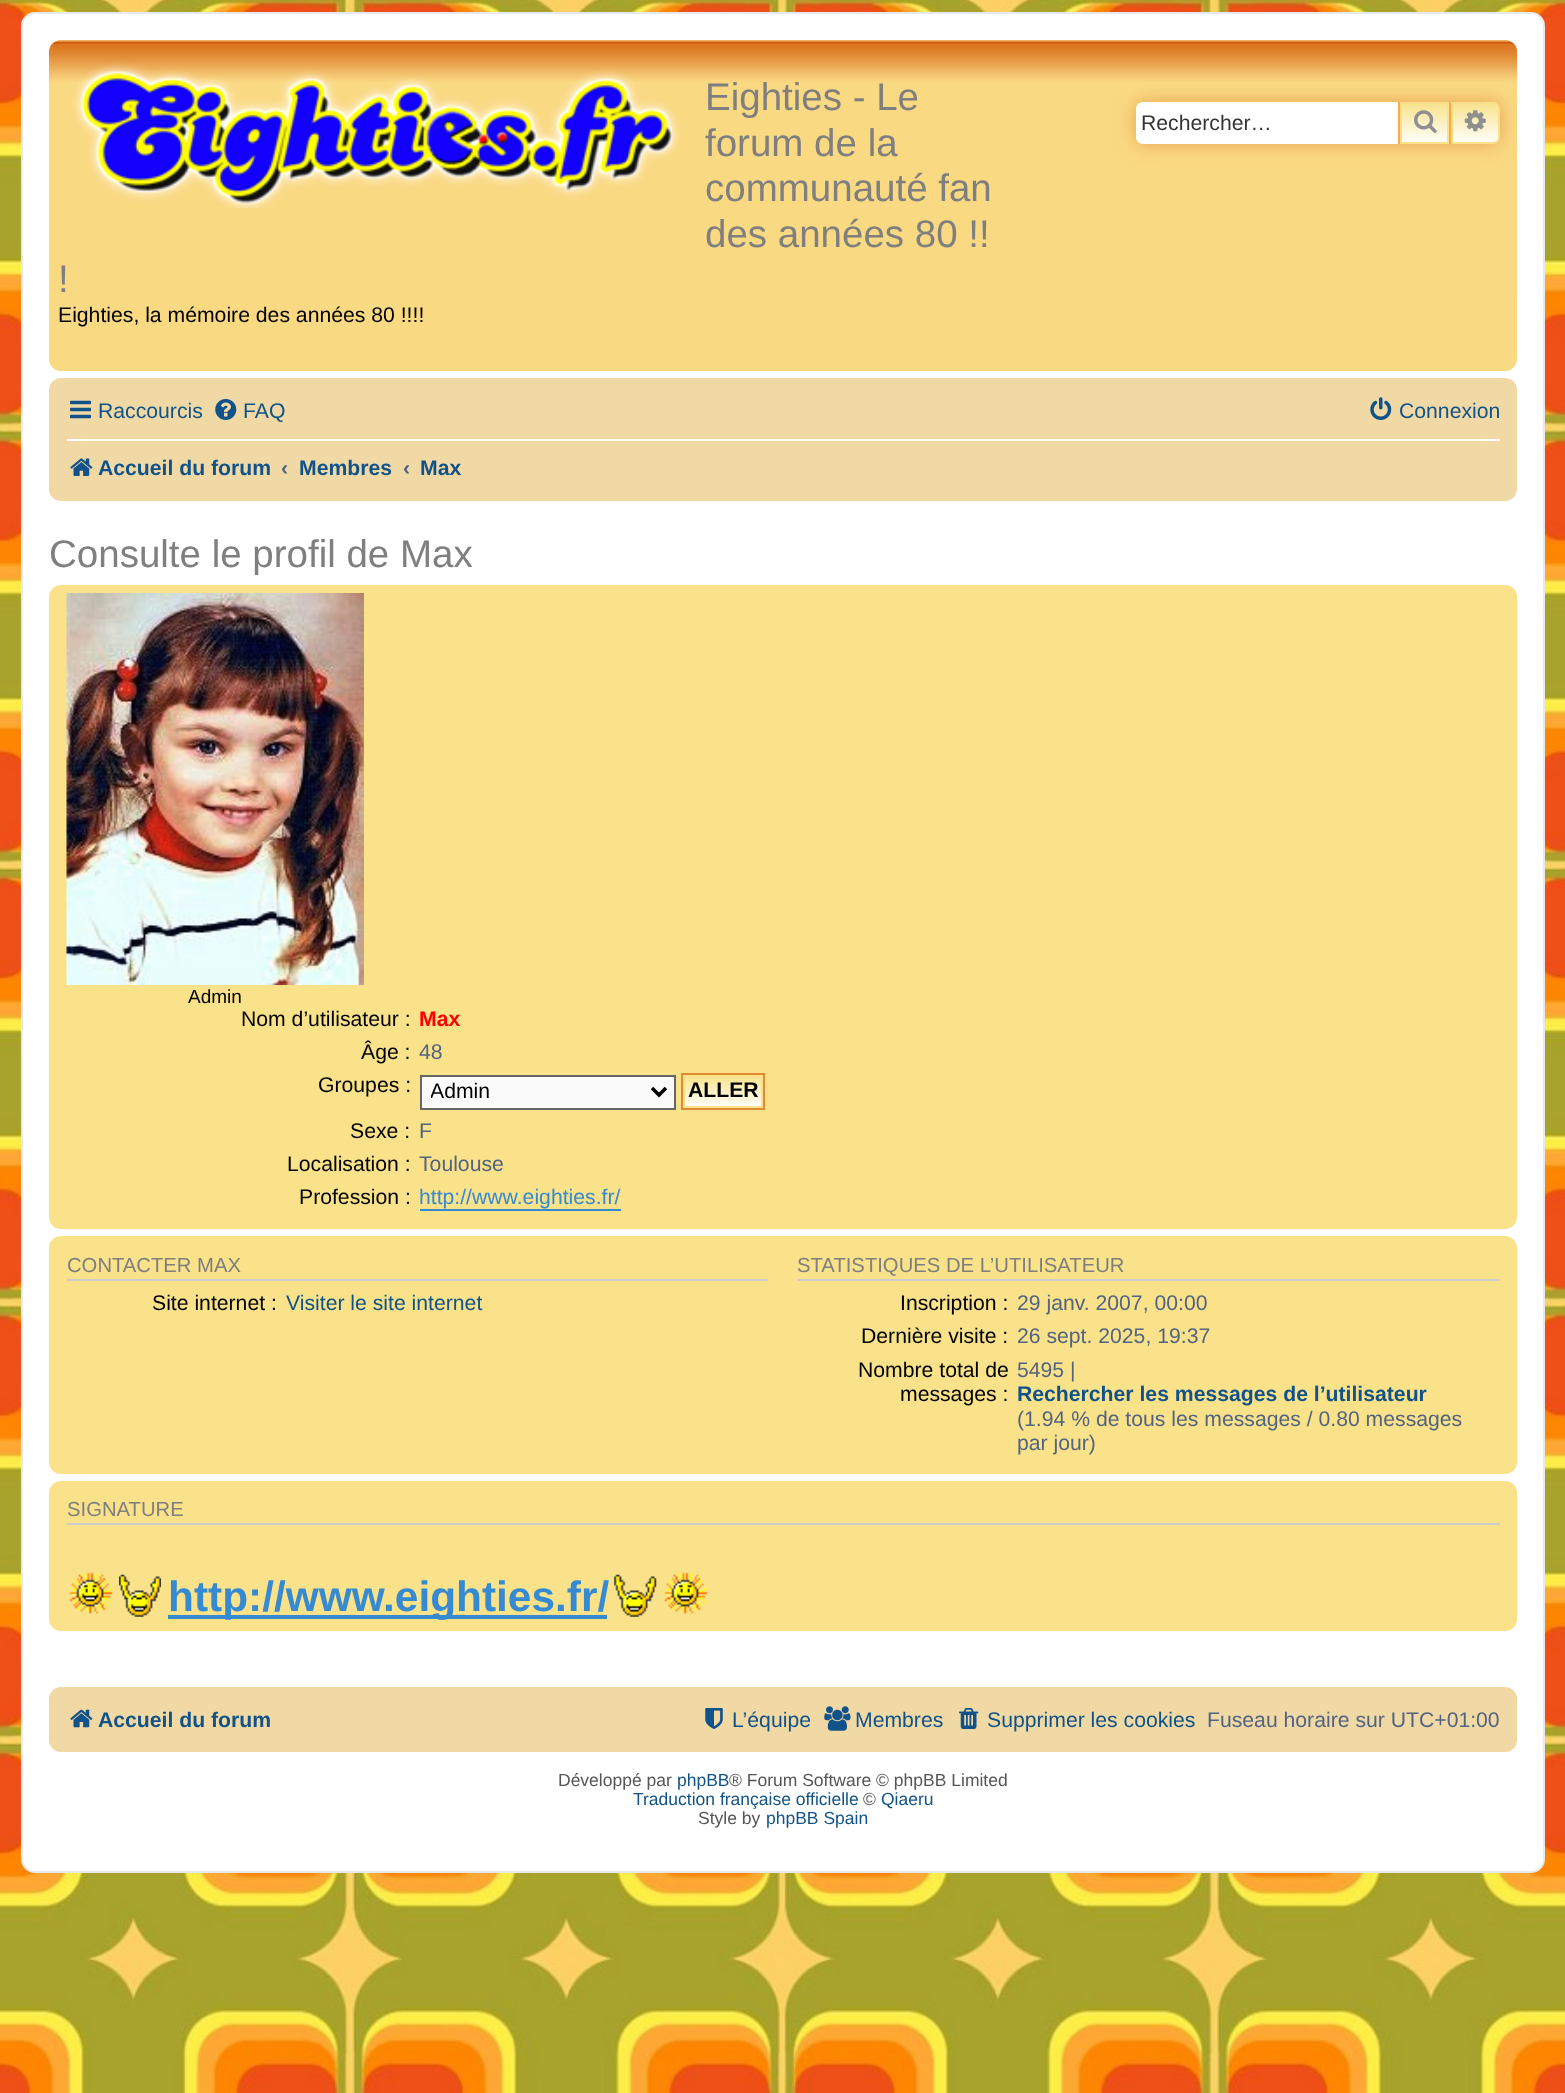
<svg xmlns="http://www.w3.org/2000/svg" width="1565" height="2093">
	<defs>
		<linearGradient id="g1" gradientUnits="userSpaceOnUse" x1="1425" y1="102" x2="1425" y2="144"><stop offset="0" stop-color="#F9E289" /><stop offset="1" stop-color="#FFFFFF" /></linearGradient>
		<linearGradient id="g2" gradientUnits="userSpaceOnUse" x1="1475" y1="102" x2="1475" y2="144"><stop offset="0" stop-color="#F9E289" /><stop offset="1" stop-color="#FFFFFF" /></linearGradient>
		<clipPath id="clip1"><rect x="431" y="1078" width="213" height="28" /></clipPath>
		<linearGradient id="g3" gradientUnits="userSpaceOnUse" x1="723" y1="1075" x2="723" y2="1108"><stop offset="0" stop-color="#F9E289" /><stop offset="1" stop-color="#FFFFFF" /></linearGradient>
	</defs>
	<rect width="100%" height="100%" fill="#FFFFFF" />
	<image x="0" y="1894" width="1565" height="199" href="assets/img1.png" />
	<image x="0" y="0" width="1565" height="1894" href="assets/img2.png" />
	<rect x="22" y="13" width="1522" height="1859" rx="13" fill="#FFFFFF" stroke="#E6E9ED" stroke-width="2" />
	<rect x="49" y="40" width="1468" height="331" rx="12" fill="#FAD983" />
	<image x="49" y="40" width="1469" height="257" href="assets/img3.png" />
	<image x="72" y="62" width="609" height="146" href="assets/img4.png" />
	<g font-family="Liberation Sans" font-size="38.5" fill="#7F7F7F">
		<text x="705" y="110">Eighties - Le</text>
		<text x="705" y="156">forum de la</text>
		<text x="705" y="201">communauté fan</text>
		<text x="705" y="247">des années 80 !!</text>
		<text x="58" y="292">!</text>
	</g>
	<text x="58" y="322" font-family="Liberation Sans" font-size="21.2" fill="#000000">Eighties, la mémoire des années 80 !!!!</text>
	<rect x="1136" y="102" width="364" height="42" rx="7" fill="#E9A24D" filter="blur(9px)" />
	<path d="M1143 102H1398V144H1143C1139 144 1136 141 1136 137V109C1136 105 1139 102 1143 102Z" fill="#FFFFFF" />
	<text x="1141" y="130" font-family="Liberation Sans" font-size="21.2" fill="#333333">Rechercher…</text>
	<rect x="1402" y="104" width="45" height="38" fill="url(#g1)" />
	<rect x="1401" y="103" width="47" height="40" fill="none" stroke="#F9E289" stroke-width="2" />
	<rect x="1449" y="102" width="2" height="42" fill="#FFA64D" />
	<rect x="1398" y="102" width="2" height="42" fill="#FFA64D" />
	<image x="1414" y="110" width="23" height="23" href="assets/img5.png" />
	<path d="M1452 103H1493C1496.5 103 1499 105.5 1499 109V137C1499 140.5 1496.5 143 1493 143H1452Z" fill="url(#g2)" stroke="#F9E289" stroke-width="2" />
	<image x="1464" y="110" width="22" height="22" href="assets/img6.png" />
	<rect x="49" y="378" width="1468" height="123" rx="12" fill="#F0D9A5" />
	<image x="70" y="400" width="21" height="19" href="assets/img7.png" />
	<text x="98" y="418" font-family="Liberation Sans" font-size="21.2" fill="#105289">Raccourcis</text>
	<image x="215" y="399" width="22" height="21" href="assets/img8.png" />
	<text x="243" y="418" font-family="Liberation Sans" font-size="21.2" fill="#105289">FAQ</text>
	<image x="1370" y="397" width="22" height="23" href="assets/img9.png" />
	<text x="1399" y="418" font-family="Liberation Sans" font-size="21.2" fill="#105289">Connexion</text>
	<rect x="67" y="439" width="1433" height="2" fill="#FFFFFF" />
	<image x="70" y="458" width="23" height="18" href="assets/img10.png" />
	<text x="98" y="475" font-family="Liberation Sans" font-size="21.2" font-weight="700" fill="#105289">Accueil du forum</text>
	<text x="281" y="475" font-family="Liberation Sans" font-size="21.2" font-weight="700" fill="#536482">‹</text>
	<text x="299" y="475" font-family="Liberation Sans" font-size="21.2" font-weight="700" fill="#105289">Membres</text>
	<text x="403" y="475" font-family="Liberation Sans" font-size="21.2" font-weight="700" fill="#536482">‹</text>
	<text x="420" y="475" font-family="Liberation Sans" font-size="21.2" font-weight="700" fill="#105289">Max</text>
	<text x="49" y="567" font-family="Liberation Sans" font-size="38.5" fill="#7F7F7F">Consulte le profil de Max</text>
	<rect x="49" y="585" width="1468" height="644" rx="12" fill="#F9E289" />
	<image x="66" y="593" width="298" height="392" href="assets/img11.png" />
	<text x="188" y="1003" font-family="Liberation Sans" font-size="19" fill="#000000">Admin</text>
	<text x="241" y="1026" font-family="Liberation Sans" font-size="21.2" fill="#000000">Nom d’utilisateur :</text>
	<text x="419" y="1026" font-family="Liberation Sans" font-size="21.2" font-weight="700" fill="#FF0000">Max</text>
	<text x="361" y="1059" font-family="Liberation Sans" font-size="21.2" fill="#000000">Âge :</text>
	<text x="419" y="1059" font-family="Liberation Sans" font-size="21.2" fill="#536482">48</text>
	<text x="318" y="1092" font-family="Liberation Sans" font-size="21.2" fill="#000000">Groupes :</text>
	<rect x="421" y="1076" width="254" height="33" fill="#FAFAFA" stroke="#666666" stroke-width="2" />
	<path d="M652 1088L659 1095L666 1088" fill="none" stroke="#000000" stroke-width="3.5" />
	<g clip-path="url(#clip1)">
		<text x="430" y="1098" font-family="Liberation Sans" font-size="21.2" fill="#000000">Admin</text>
	</g>
	<rect x="685" y="1077" width="76" height="29" fill="url(#g3)" />
	<rect x="682" y="1074" width="82" height="35" fill="none" stroke="#E18935" stroke-width="2" />
	<text x="688" y="1097" font-family="Liberation Sans" font-size="21.2" font-weight="700" fill="#000000">ALLER</text>
	<text x="350" y="1138" font-family="Liberation Sans" font-size="21.2" fill="#000000">Sexe :</text>
	<text x="419" y="1138" font-family="Liberation Sans" font-size="21.2" fill="#536482">F</text>
	<text x="287" y="1171" font-family="Liberation Sans" font-size="21.2" fill="#000000">Localisation :</text>
	<text x="419" y="1171" font-family="Liberation Sans" font-size="21.2" fill="#536482">Toulouse</text>
	<text x="299" y="1204" font-family="Liberation Sans" font-size="21.2" fill="#000000">Profession :</text>
	<rect x="420" y="1209" width="201" height="2" fill="#368AD2" />
	<text x="419" y="1204" font-family="Liberation Sans" font-size="21.2" fill="#368AD2">http://www.eighties.fr/</text>
	<rect x="49" y="1236" width="1468" height="238" rx="12" fill="#F9E289" />
	<rect x="67" y="1279" width="701" height="2" fill="#CCCCCC" />
	<text x="67" y="1272" font-family="Liberation Sans" font-size="20.25" fill="#7F7F7F">CONTACTER MAX</text>
	<text x="152" y="1310" font-family="Liberation Sans" font-size="21.2" fill="#000000">Site internet :</text>
	<text x="286" y="1310" font-family="Liberation Sans" font-size="21.2" fill="#105289">Visiter le site internet</text>
	<rect x="798" y="1279" width="702" height="2" fill="#CCCCCC" />
	<text x="797" y="1272" font-family="Liberation Sans" font-size="20.25" fill="#7F7F7F">STATISTIQUES DE L’UTILISATEUR</text>
	<text x="900" y="1310" font-family="Liberation Sans" font-size="21.2" fill="#000000">Inscription :</text>
	<text x="1017" y="1310" font-family="Liberation Sans" font-size="21.2" fill="#536482">29 janv. 2007, 00:00</text>
	<text x="861" y="1343" font-family="Liberation Sans" font-size="21.2" fill="#000000">Dernière visite :</text>
	<text x="1017" y="1343" font-family="Liberation Sans" font-size="21.2" fill="#536482">26 sept. 2025, 19:37</text>
	<g font-family="Liberation Sans" font-size="21.2" fill="#000000">
		<text x="858" y="1377">Nombre total de</text>
		<text x="900" y="1401">messages :</text>
	</g>
	<text x="1017" y="1377" font-family="Liberation Sans" font-size="21.2" fill="#536482">5495 |</text>
	<text x="1017" y="1401" font-family="Liberation Sans" font-size="21.2" font-weight="700" fill="#105289">Rechercher les messages de l’utilisateur</text>
	<g font-family="Liberation Sans" font-size="21.2" fill="#536482">
		<text x="1017" y="1426">(1.94 % de tous les messages / 0.80 messages</text>
		<text x="1017" y="1450">par jour)</text>
	</g>
	<rect x="49" y="1481" width="1468" height="150" rx="12" fill="#F9E289" />
	<rect x="67" y="1523" width="1433" height="2" fill="#CCCCCC" />
	<text x="67" y="1516" font-family="Liberation Sans" font-size="20.25" fill="#7F7F7F">SIGNATURE</text>
	<image x="69" y="1572" width="44" height="42" href="assets/img12.png" />
	<image x="119" y="1574" width="42" height="43" href="assets/img13.png" />
	<rect x="168" y="1615" width="439" height="4" fill="#368AD2" />
	<text x="168" y="1611" font-family="Liberation Sans" font-size="42.4" font-weight="700" fill="#368AD2">http://www.eighties.fr/</text>
	<image x="614" y="1574" width="43" height="43" href="assets/img14.png" />
	<image x="664" y="1572" width="44" height="42" href="assets/img12.png" />
	<rect x="49" y="1687" width="1468" height="65" rx="12" fill="#F0D9A5" />
	<image x="70" y="1709" width="23" height="19" href="assets/img15.png" />
	<text x="98" y="1727" font-family="Liberation Sans" font-size="21.2" font-weight="700" fill="#105289">Accueil du forum</text>
	<image x="705" y="1708" width="18" height="21" href="assets/img16.png" />
	<text x="732" y="1727" font-family="Liberation Sans" font-size="21.2" fill="#105289">L’équipe</text>
	<image x="824" y="1706" width="27" height="25" href="assets/img17.png" />
	<text x="855" y="1727" font-family="Liberation Sans" font-size="21.2" fill="#105289">Membres</text>
	<image x="959" y="1708" width="20" height="21" href="assets/img18.png" />
	<text x="987" y="1727" font-family="Liberation Sans" font-size="21.2" fill="#105289">Supprimer les cookies</text>
	<text x="1207" y="1727" font-family="Liberation Sans" font-size="21.2" fill="#536482">Fuseau horaire sur UTC+01:00</text>
	<text x="558" y="1786" font-family="Liberation Sans" font-size="17.5" fill="#555555">Développé par</text>
	<text x="677" y="1786" font-family="Liberation Sans" font-size="17.5" fill="#105289">phpBB</text>
	<text x="729" y="1786" font-family="Liberation Sans" font-size="17.5" fill="#555555">® Forum Software © phpBB Limited</text>
	<text x="633" y="1805" font-family="Liberation Sans" font-size="17.5" fill="#105289">Traduction française officielle</text>
	<text x="863" y="1805" font-family="Liberation Sans" font-size="17.5" fill="#555555">©</text>
	<text x="881" y="1805" font-family="Liberation Sans" font-size="17.5" fill="#105289">Qiaeru</text>
	<text x="698" y="1824" font-family="Liberation Sans" font-size="17.5" fill="#555555">Style by</text>
	<text x="766" y="1824" font-family="Liberation Sans" font-size="17.5" fill="#105289">phpBB Spain</text>
</svg>
